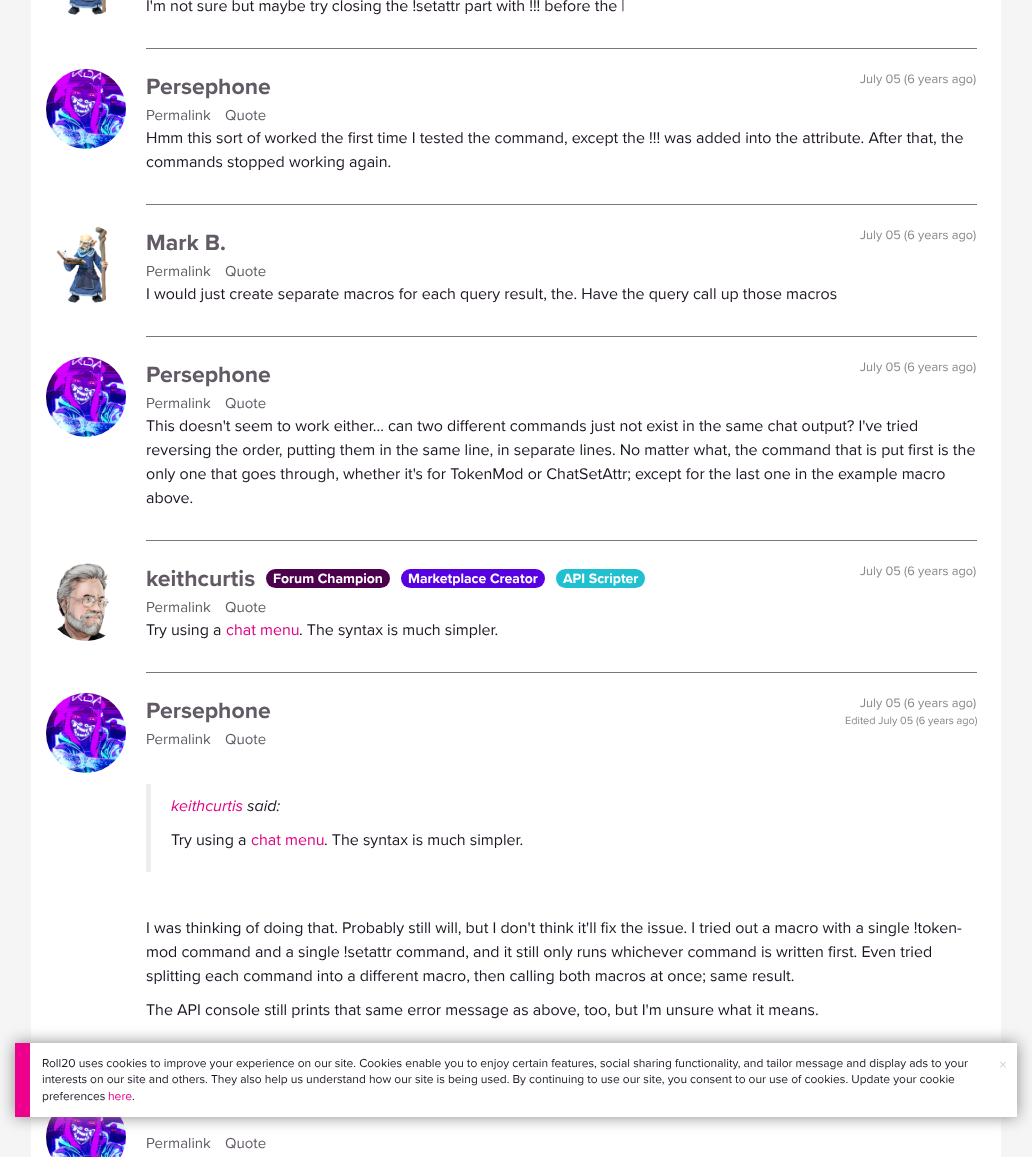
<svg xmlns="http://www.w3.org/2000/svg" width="1032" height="1157">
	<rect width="100%" height="100%" fill="#F5F5F5" />
	<rect x="31" y="0" width="970" height="1157" fill="#FFFFFF" />
	<image x="67" y="0" width="39" height="15" href="assets/img1.png" />
	<rect x="146" y="48" width="831" height="1" fill="#777777" />
	<text x="146" y="11" font-family="Proxima Nova" font-size="16" fill="#1E1523">I'm not sure but maybe try closing the !setattr part with !!! before the |</text>
	<image x="46" y="69" width="80" height="80" href="assets/img2.png" />
	<text x="146" y="94" font-family="Proxima Nova" font-size="23" font-weight="700" fill="#625B65">Persephone</text>
	<text x="860" y="83" font-family="Proxima Nova" font-size="12.75" fill="#888888">July 05 (6 years ago)</text>
	<g font-family="Proxima Nova" font-size="15" fill="#625B65">
		<text x="146" y="120">Permalink</text>
		<text x="225" y="120">Quote</text>
	</g>
	<rect x="146" y="204" width="831" height="1" fill="#777777" />
	<g font-family="Proxima Nova" font-size="16" fill="#1E1523">
		<text x="146" y="143">Hmm this sort of worked the first time I tested the command, except the !!! was added into the attribute. After that, the</text>
		<text x="146" y="167">commands stopped working again.</text>
	</g>
	<image x="56" y="226" width="53" height="77" href="assets/img3.png" />
	<text x="146" y="250" font-family="Proxima Nova" font-size="23" font-weight="700" fill="#625B65">Mark B.</text>
	<text x="860" y="239" font-family="Proxima Nova" font-size="12.75" fill="#888888">July 05 (6 years ago)</text>
	<g font-family="Proxima Nova" font-size="15" fill="#625B65">
		<text x="146" y="276">Permalink</text>
		<text x="225" y="276">Quote</text>
	</g>
	<rect x="146" y="336" width="831" height="1" fill="#777777" />
	<text x="146" y="299" font-family="Proxima Nova" font-size="16" fill="#1E1523">I would just create separate macros for each query result, the. Have the query call up those macros</text>
	<image x="46" y="357" width="80" height="80" href="assets/img4.png" />
	<text x="146" y="382" font-family="Proxima Nova" font-size="23" font-weight="700" fill="#625B65">Persephone</text>
	<text x="860" y="371" font-family="Proxima Nova" font-size="12.75" fill="#888888">July 05 (6 years ago)</text>
	<g font-family="Proxima Nova" font-size="15" fill="#625B65">
		<text x="146" y="408">Permalink</text>
		<text x="225" y="408">Quote</text>
	</g>
	<rect x="146" y="540" width="831" height="1" fill="#777777" />
	<g font-family="Proxima Nova" font-size="16" fill="#1E1523">
		<text x="146" y="431">This doesn't seem to work either... can two different commands just not exist in the same chat output? I've tried</text>
		<text x="146" y="455">reversing the order, putting them in the same line, in separate lines. No matter what, the command that is put first is the</text>
		<text x="146" y="479">only one that goes through, whether it's for TokenMod or ChatSetAttr; except for the last one in the example macro</text>
		<text x="146" y="503">above.</text>
	</g>
	<image x="56" y="563" width="53" height="78" href="assets/img5.png" />
	<text x="146" y="586" font-family="Proxima Nova" font-size="23" font-weight="700" fill="#625B65">keithcurtis</text>
	<rect x="266" y="569" width="124" height="19" rx="9.5" fill="#4D004D" />
	<text x="273" y="583" font-family="Proxima Nova" font-size="14" font-weight="700" fill="#FFFFFF">Forum Champion</text>
	<rect x="401" y="569" width="144" height="19" rx="9.5" fill="#5700E2" />
	<text x="408" y="583" font-family="Proxima Nova" font-size="14" font-weight="700" fill="#FFFFFF">Marketplace Creator</text>
	<rect x="556" y="569" width="89" height="19" rx="9.5" fill="#21C0D0" />
	<text x="563" y="583" font-family="Proxima Nova" font-size="14" font-weight="700" fill="#FFFFFF">API Scripter</text>
	<text x="860" y="575" font-family="Proxima Nova" font-size="12.75" fill="#888888">July 05 (6 years ago)</text>
	<g font-family="Proxima Nova" font-size="15" fill="#625B65">
		<text x="146" y="612">Permalink</text>
		<text x="225" y="612">Quote</text>
	</g>
	<rect x="146" y="672" width="831" height="1" fill="#777777" />
	<text x="146" y="635" font-family="Proxima Nova" font-size="16" fill="#1E1523">Try using a</text>
	<text x="226" y="635" font-family="Proxima Nova" font-size="16" fill="#E10085">chat menu</text>
	<text x="299" y="635" font-family="Proxima Nova" font-size="16" fill="#1E1523">. The syntax is much simpler.</text>
	<image x="46" y="693" width="80" height="80" href="assets/img6.png" />
	<text x="146" y="718" font-family="Proxima Nova" font-size="23" font-weight="700" fill="#625B65">Persephone</text>
	<text x="860" y="707" font-family="Proxima Nova" font-size="12.75" fill="#888888">July 05 (6 years ago)</text>
	<text x="845" y="724" font-family="Proxima Nova" font-size="10.9" fill="#888888">Edited July 05 (6 years ago)</text>
	<g font-family="Proxima Nova" font-size="15" fill="#625B65">
		<text x="146" y="744">Permalink</text>
		<text x="225" y="744">Quote</text>
	</g>
	<rect x="146" y="784" width="5" height="88" fill="#EEEEEE" />
	<text x="171" y="811" font-family="Proxima Nova" font-size="16" font-style="italic" fill="#E10085">keithcurtis</text>
	<text x="247" y="811" font-family="Proxima Nova" font-size="16" font-style="italic" fill="#1E1523">said:</text>
	<text x="171" y="845" font-family="Proxima Nova" font-size="16" fill="#1E1523">Try using a</text>
	<text x="251" y="845" font-family="Proxima Nova" font-size="16" fill="#E10085">chat menu</text>
	<g font-family="Proxima Nova" font-size="16" fill="#1E1523">
		<text x="324" y="845">. The syntax is much simpler.</text>
		<text x="146" y="933">I was thinking of doing that. Probably still will, but I don't think it'll fix the issue. I tried out a macro with a single !token-</text>
		<text x="146" y="957">mod command and a single !setattr command, and it still only runs whichever command is written first. Even tried</text>
		<text x="146" y="981">splitting each command into a different macro, then calling both macros at once; same result.</text>
		<text x="146" y="1015">The API console still prints that same error message as above, too, but I'm unsure what it means.</text>
	</g>
	<image x="46" y="1117" width="80" height="40" href="assets/img7.png" />
	<g font-family="Proxima Nova" font-size="15" fill="#625B65">
		<text x="146" y="1148">Permalink</text>
		<text x="225" y="1148">Quote</text>
	</g>
	<rect x="15" y="1043" width="1002" height="74" fill="#888888" filter="blur(8px)" />
	<rect x="30" y="1043" width="987" height="74" fill="#FFFFFF" />
	<rect x="15" y="1043" width="15" height="74" fill="#EC008C" />
	<g font-family="Proxima Nova" font-size="12" fill="#1E1523">
		<text x="42" y="1067">Roll20 uses cookies to improve your experience on our site. Cookies enable you to enjoy certain features, social sharing functionality, and tailor message and display ads to your</text>
		<text x="42" y="1083">interests on our site and others. They also help us understand how our site is being used. By continuing to use our site, you consent to our use of cookies. Update your cookie</text>
		<text x="42" y="1100">preferences</text>
	</g>
	<text x="108" y="1100" font-family="Proxima Nova" font-size="12" fill="#E10085">here</text>
	<text x="132" y="1100" font-family="Proxima Nova" font-size="12" fill="#1E1523">.</text>
	<text x="999" y="1070" font-family="Proxima Nova" font-size="16" fill="#D1D1D1">×</text>
</svg>
